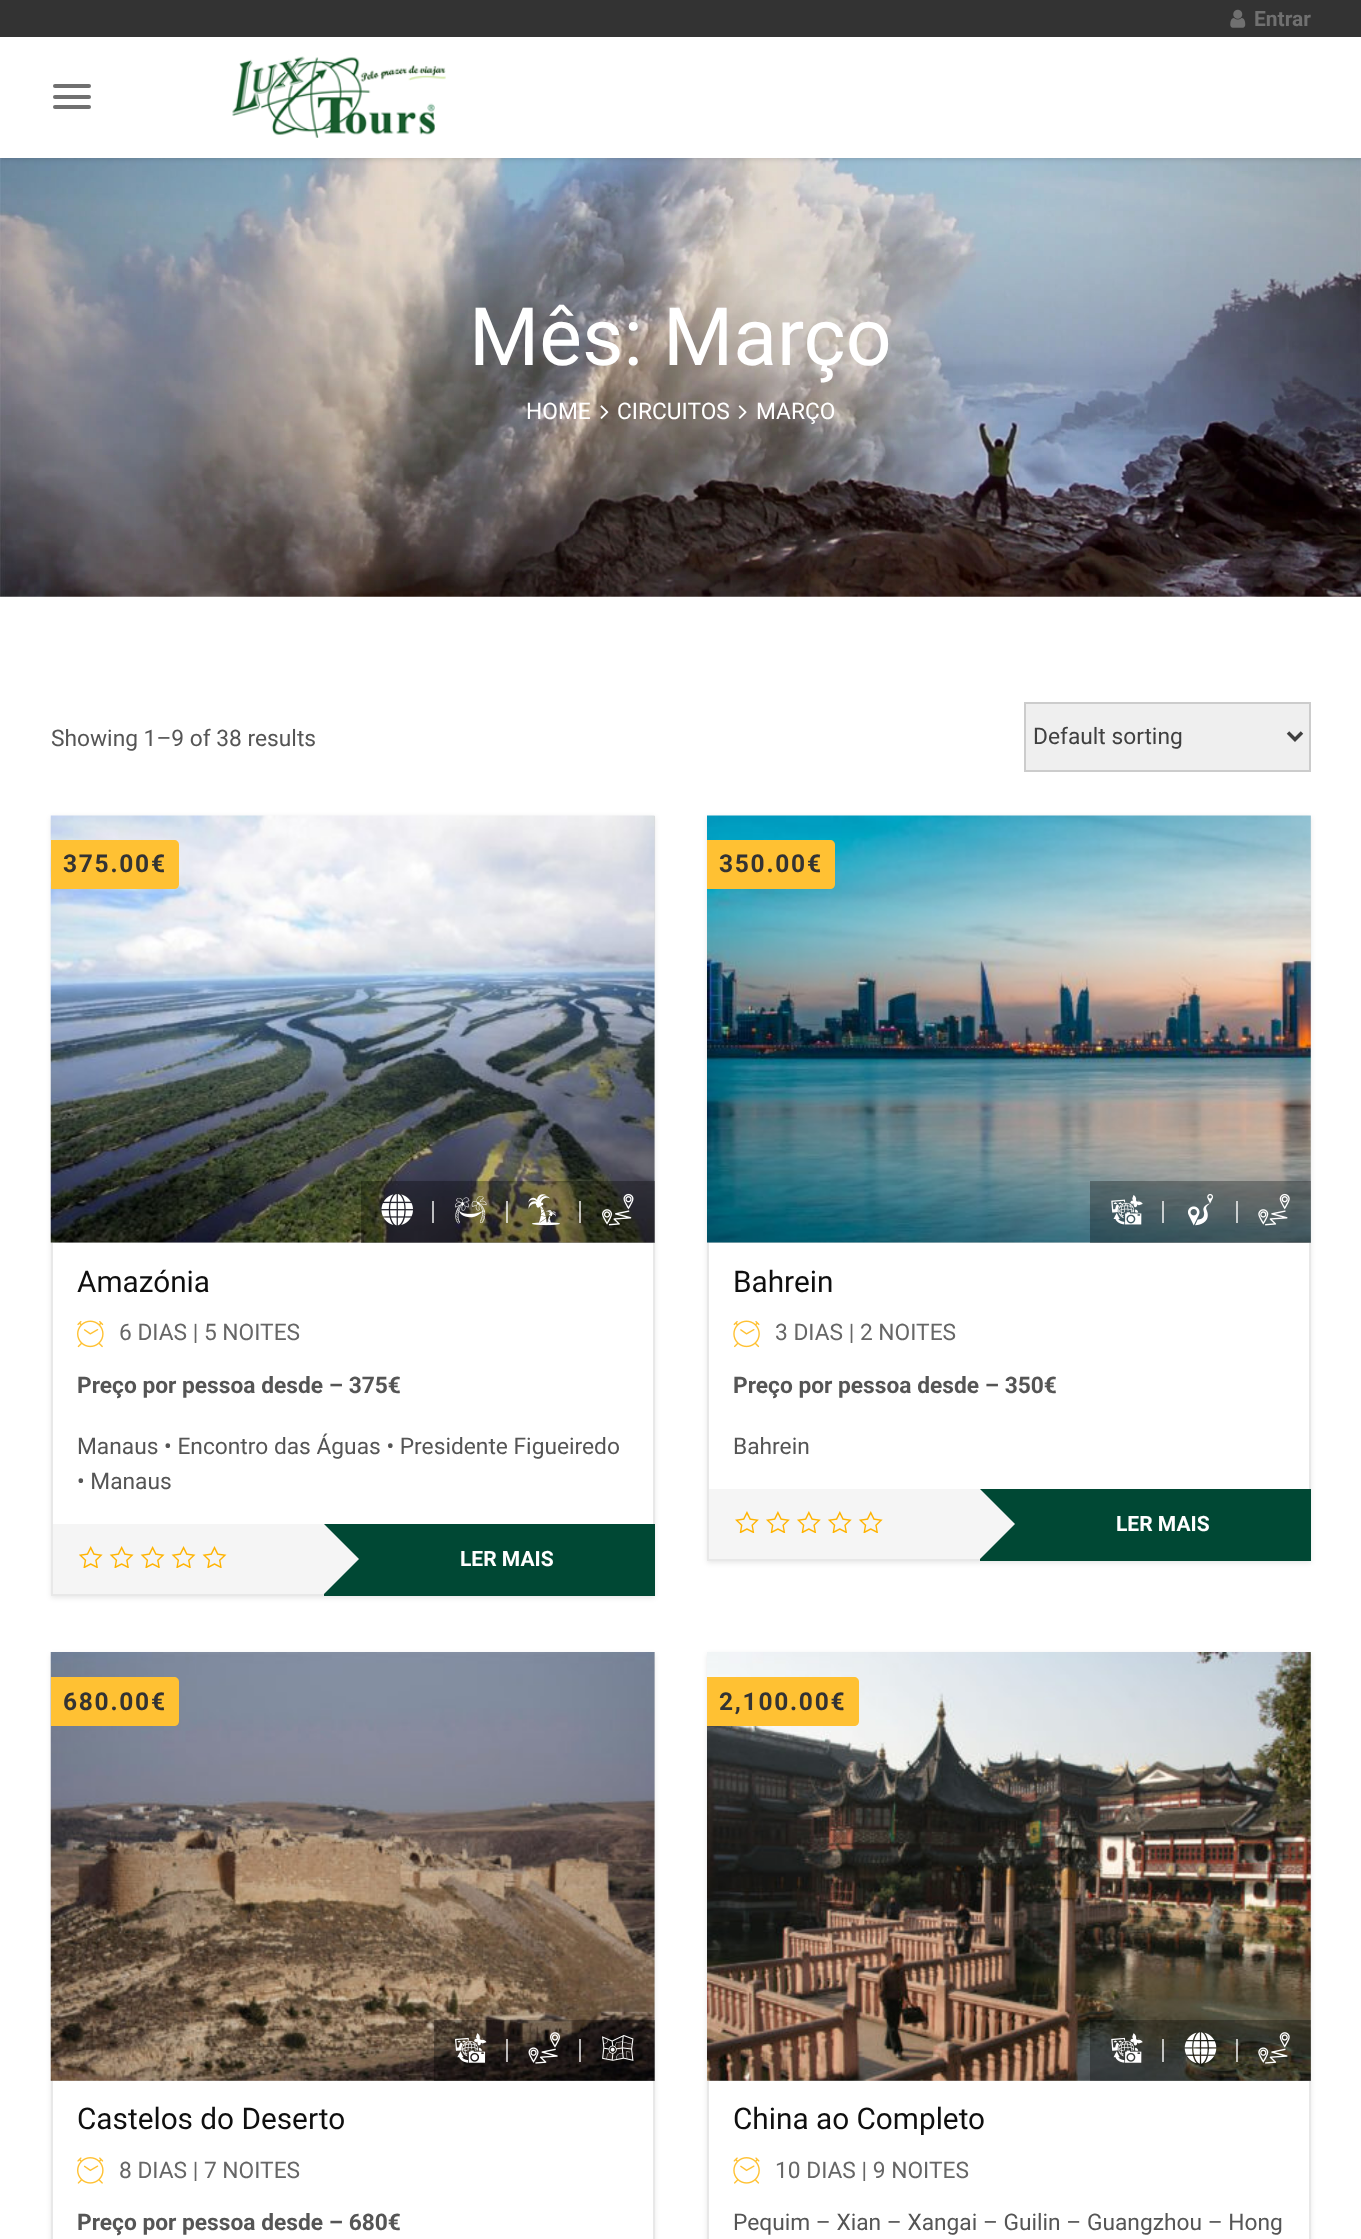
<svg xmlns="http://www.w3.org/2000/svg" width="1361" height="2239">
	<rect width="100%" height="100%" fill="#FFFFFF" />
	<image x="0" y="158" width="1361" height="439" href="assets/img3.png" />
	<rect x="0" y="2" width="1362" height="157" fill="#000000" fill-opacity="0.15" filter="blur(2.5px)" />
	<rect x="0" y="0" width="1361" height="37" fill="#333333" />
	<image x="1230" y="9" width="16" height="19" href="assets/img1.png" />
	<text x="1254" y="26" font-family="Roboto" font-size="21" font-weight="700" fill="#707070">Entrar</text>
	<rect x="0" y="37" width="1361" height="121" fill="#FFFFFF" />
	<rect x="53" y="84" width="38" height="4" rx="2" fill="#707070" />
	<rect x="53" y="95" width="38" height="4" rx="2" fill="#707070" />
	<rect x="53" y="105" width="38" height="4" rx="2" fill="#707070" />
	<image x="232" y="56" width="214" height="82" href="assets/img2.png" />
	<text x="469" y="365" font-family="Roboto" font-size="80.5" fill="#FFFFFF">Mês: Março</text>
	<text x="526" y="419" font-family="Roboto" font-size="22.75" fill="#FFFFFF">HOME</text>
	<image x="600" y="405" width="9" height="14" href="assets/img4.png" />
	<text x="617" y="419" font-family="Roboto" font-size="22.75" fill="#FFFFFF">CIRCUITOS</text>
	<image x="738" y="405" width="9" height="14" href="assets/img5.png" />
	<text x="756" y="419" font-family="Roboto" font-size="22.75" fill="#FFFFFF">MARÇO</text>
	<text x="51" y="746" font-family="Roboto" font-size="22.75" fill="#555555">Showing 1–9 of 38 results</text>
	<rect x="1025" y="703" width="285" height="68" fill="#EFEFEF" stroke="#CCCCCC" stroke-width="2" />
	<path d="M1288 732.5L1295 739.5L1302 732.5" fill="none" stroke="#404040" stroke-width="3.5" />
	<text x="1033" y="744" font-family="Roboto" font-size="22.75" fill="#404040">Default sorting</text>
	<rect x="51" y="817" width="604" height="781" fill="#000000" fill-opacity="0.09" filter="blur(2.5px)" />
	<rect x="53" y="1243" width="600" height="281" fill="#FFFFFF" />
	<rect x="52" y="817" width="602" height="778" fill="none" stroke="#E8E8E8" stroke-width="2" />
	<rect x="51" y="816" width="604" height="427" fill="#D8D8D8" />
	<image x="50" y="815" width="605" height="428" href="assets/img6.png" />
	<path d="M51 840H174C177 840 179 842 179 845V884C179 887 177 889 174 889H51Z" fill="#FFC133" />
	<text x="63" y="872" font-family="Roboto" font-size="24.5" font-weight="700" letter-spacing="1.75" fill="#333333">375.00€</text>
	<rect x="361" y="1181" width="294" height="62" fill="#000000" fill-opacity="0.3" />
	<image x="381" y="1194" width="32" height="32" href="assets/img7.png" />
	<rect x="432" y="1201" width="2" height="22" fill="#FFFFFF" fill-opacity="0.7" />
	<image x="455" y="1196" width="32" height="28" href="assets/img8.png" />
	<rect x="506" y="1201" width="2" height="22" fill="#FFFFFF" fill-opacity="0.7" />
	<image x="528" y="1194" width="32" height="32" href="assets/img9.png" />
	<rect x="579" y="1201" width="2" height="22" fill="#FFFFFF" fill-opacity="0.7" />
	<image x="602" y="1193" width="32" height="33" href="assets/img10.png" />
	<text x="77" y="1292" font-family="Roboto" font-size="29.75" fill="#0F0F0F">Amazónia</text>
	<image x="77" y="1320" width="27" height="28" href="assets/img11.png" />
	<text x="119" y="1340" font-family="Roboto" font-size="22.75" fill="#666666">6 DIAS | 5 NOITES</text>
	<text x="77" y="1393" font-family="Roboto" font-size="22.75" font-weight="700" fill="#555555">Preço por pessoa desde – 375€</text>
	<g font-family="Roboto" font-size="22.75" fill="#555555">
		<text x="77" y="1454">Manaus • Encontro das Águas • Presidente Figueiredo</text>
		<text x="77" y="1489">• Manaus</text>
	</g>
	<rect x="53" y="1524" width="271" height="70" fill="#F5F5F5" />
	<image x="79" y="1546" width="148" height="22" href="assets/img12.png" />
	<rect x="324" y="1524" width="331" height="72" fill="#004834" />
	<path d="M324 1594V1524L359 1559Z" fill="#F5F5F5" />
	<text x="460" y="1566" font-family="Roboto" font-size="21" font-weight="700" fill="#FFFFFF">LER MAIS</text>
	<rect x="707" y="817" width="604" height="746" fill="#000000" fill-opacity="0.09" filter="blur(2.5px)" />
	<rect x="709" y="1243" width="600" height="246" fill="#FFFFFF" />
	<rect x="708" y="817" width="602" height="743" fill="none" stroke="#E8E8E8" stroke-width="2" />
	<rect x="707" y="816" width="604" height="427" fill="#D8D8D8" />
	<image x="707" y="815" width="604" height="428" href="assets/img13.png" />
	<path d="M707 840H830C833 840 835 842 835 845V884C835 887 833 889 830 889H707Z" fill="#FFC133" />
	<text x="719" y="872" font-family="Roboto" font-size="24.5" font-weight="700" letter-spacing="1.75" fill="#333333">350.00€</text>
	<rect x="1090" y="1181" width="221" height="62" fill="#000000" fill-opacity="0.3" />
	<image x="1111" y="1195" width="32" height="30" href="assets/img14.png" />
	<rect x="1162" y="1201" width="2" height="22" fill="#FFFFFF" fill-opacity="0.7" />
	<image x="1188" y="1194" width="25" height="32" href="assets/img15.png" />
	<rect x="1236" y="1201" width="2" height="22" fill="#FFFFFF" fill-opacity="0.7" />
	<image x="1258" y="1193" width="32" height="33" href="assets/img16.png" />
	<text x="733" y="1292" font-family="Roboto" font-size="29.75" fill="#0F0F0F">Bahrein</text>
	<image x="733" y="1320" width="27" height="28" href="assets/img17.png" />
	<text x="775" y="1340" font-family="Roboto" font-size="22.75" fill="#666666">3 DIAS | 2 NOITES</text>
	<text x="733" y="1393" font-family="Roboto" font-size="22.75" font-weight="700" fill="#555555">Preço por pessoa desde – 350€</text>
	<text x="733" y="1454" font-family="Roboto" font-size="22.75" fill="#555555">Bahrein</text>
	<rect x="709" y="1489" width="271" height="70" fill="#F5F5F5" />
	<image x="735" y="1511" width="148" height="22" href="assets/img18.png" />
	<rect x="980" y="1489" width="331" height="72" fill="#004834" />
	<path d="M980 1559V1489L1015 1524Z" fill="#F5F5F5" />
	<text x="1116" y="1531" font-family="Roboto" font-size="21" font-weight="700" fill="#FFFFFF">LER MAIS</text>
	<rect x="51" y="1654" width="604" height="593" fill="#000000" fill-opacity="0.09" filter="blur(2.5px)" />
	<rect x="53" y="2081" width="600" height="158" fill="#FFFFFF" />
	<rect x="52" y="1653" width="602" height="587" fill="none" stroke="#E8E8E8" stroke-width="2" />
	<rect x="51" y="1652" width="604" height="429" fill="#D8D8D8" />
	<image x="50" y="1652" width="605" height="429" href="assets/img19.png" />
	<path d="M51 1677H174C177 1677 179 1679 179 1682V1721C179 1724 177 1726 174 1726H51Z" fill="#FFC133" />
	<text x="63" y="1710" font-family="Roboto" font-size="24.5" font-weight="700" letter-spacing="1.75" fill="#333333">680.00€</text>
	<rect x="434" y="2020" width="221" height="61" fill="#000000" fill-opacity="0.3" />
	<image x="455" y="2033" width="32" height="30" href="assets/img20.png" />
	<rect x="506" y="2039" width="2" height="23" fill="#FFFFFF" fill-opacity="0.7" />
	<image x="528" y="2032" width="32" height="32" href="assets/img21.png" />
	<rect x="579" y="2039" width="2" height="23" fill="#FFFFFF" fill-opacity="0.7" />
	<image x="602" y="2035" width="32" height="26" href="assets/img22.png" />
	<text x="77" y="2129" font-family="Roboto" font-size="29.75" fill="#0F0F0F">Castelos do Deserto</text>
	<image x="77" y="2157" width="27" height="27" href="assets/img23.png" />
	<text x="119" y="2178" font-family="Roboto" font-size="22.75" fill="#666666">8 DIAS | 7 NOITES</text>
	<text x="77" y="2230" font-family="Roboto" font-size="22.75" font-weight="700" fill="#555555">Preço por pessoa desde – 680€</text>
	<rect x="707" y="1654" width="604" height="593" fill="#000000" fill-opacity="0.09" filter="blur(2.5px)" />
	<rect x="709" y="2081" width="600" height="158" fill="#FFFFFF" />
	<rect x="708" y="1653" width="602" height="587" fill="none" stroke="#E8E8E8" stroke-width="2" />
	<rect x="707" y="1652" width="604" height="429" fill="#D8D8D8" />
	<image x="707" y="1652" width="604" height="429" href="assets/img24.png" />
	<path d="M707 1677H854C857 1677 859 1679 859 1682V1721C859 1724 857 1726 854 1726H707Z" fill="#FFC133" />
	<text x="719" y="1710" font-family="Roboto" font-size="24.5" font-weight="700" letter-spacing="1.75" fill="#333333">2,100.00€</text>
	<rect x="1090" y="2020" width="221" height="61" fill="#000000" fill-opacity="0.3" />
	<image x="1111" y="2033" width="32" height="30" href="assets/img25.png" />
	<rect x="1162" y="2039" width="2" height="23" fill="#FFFFFF" fill-opacity="0.7" />
	<image x="1184" y="2032" width="33" height="32" href="assets/img26.png" />
	<rect x="1236" y="2039" width="2" height="23" fill="#FFFFFF" fill-opacity="0.7" />
	<image x="1258" y="2032" width="32" height="32" href="assets/img27.png" />
	<text x="733" y="2129" font-family="Roboto" font-size="29.75" fill="#0F0F0F">China ao Completo</text>
	<image x="733" y="2157" width="27" height="27" href="assets/img28.png" />
	<text x="775" y="2178" font-family="Roboto" font-size="22.75" fill="#666666">10 DIAS | 9 NOITES</text>
	<text x="733" y="2230" font-family="Roboto" font-size="22.75" fill="#555555">Pequim – Xian – Xangai – Guilin – Guangzhou – Hong</text>
</svg>
